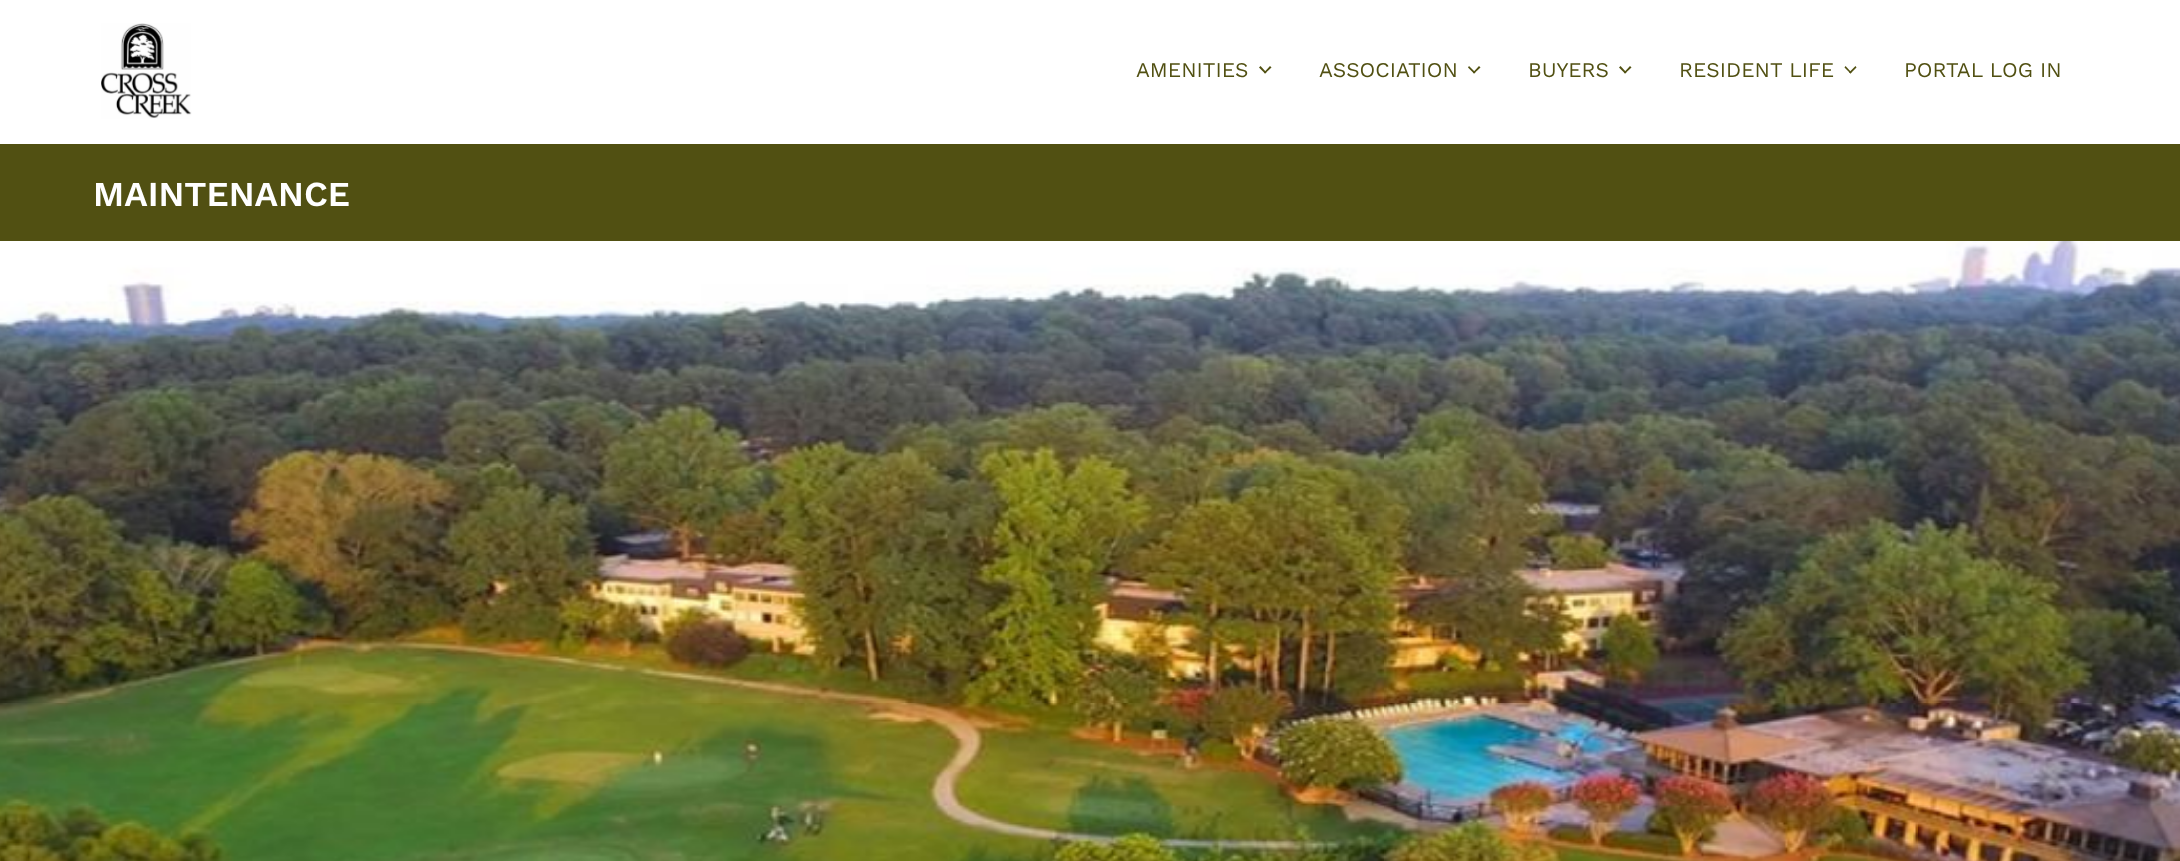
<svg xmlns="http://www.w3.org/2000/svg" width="2180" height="861">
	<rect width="100%" height="100%" fill="#FFFFFF" />
	<image x="101" y="23" width="91" height="96" href="assets/img1.png" />
	<text x="1136" y="77" font-family="Work Sans" font-size="21" fill="#515012">AMENITIES</text>
	<path d="M1270 66L1271.5 67.5L1265 73.5L1264 72.5Z" fill="#515012" />
	<path d="M1260.5 66L1266.5 72.5L1265 73.5L1259 67.5Z" fill="#515012" />
	<text x="1319" y="77" font-family="Work Sans" font-size="21" fill="#515012">ASSOCIATION</text>
	<path d="M1479 66L1480.5 67.5L1474 73.5L1473 72.5Z" fill="#515012" />
	<path d="M1469 66L1475.5 72.5L1474 73.5L1468 67.5Z" fill="#515012" />
	<text x="1528" y="77" font-family="Work Sans" font-size="21" fill="#515012">BUYERS</text>
	<path d="M1630 66L1631.5 67.5L1625 73.5L1624 72.5Z" fill="#515012" />
	<path d="M1620.5 66L1626.5 72.5L1625 73.5L1619 67.5Z" fill="#515012" />
	<text x="1679" y="77" font-family="Work Sans" font-size="21" fill="#515012">RESIDENT LIFE</text>
	<path d="M1855.5 66L1856.5 67.5L1850.5 73.5L1849 72.5Z" fill="#515012" />
	<path d="M1845.5 66L1851.5 72.5L1850.5 73.5L1844.5 67.5Z" fill="#515012" />
	<text x="1904" y="77" font-family="Work Sans" font-size="21" fill="#515012">PORTAL LOG IN</text>
	<rect x="0" y="144" width="2180" height="97" fill="#515012" />
	<text x="93" y="206" font-family="Work Sans" font-size="35" font-weight="600" fill="#FFFFFF">MAINTENANCE</text>
	<image x="0" y="241" width="2180" height="620" href="assets/img2.png" />
</svg>
